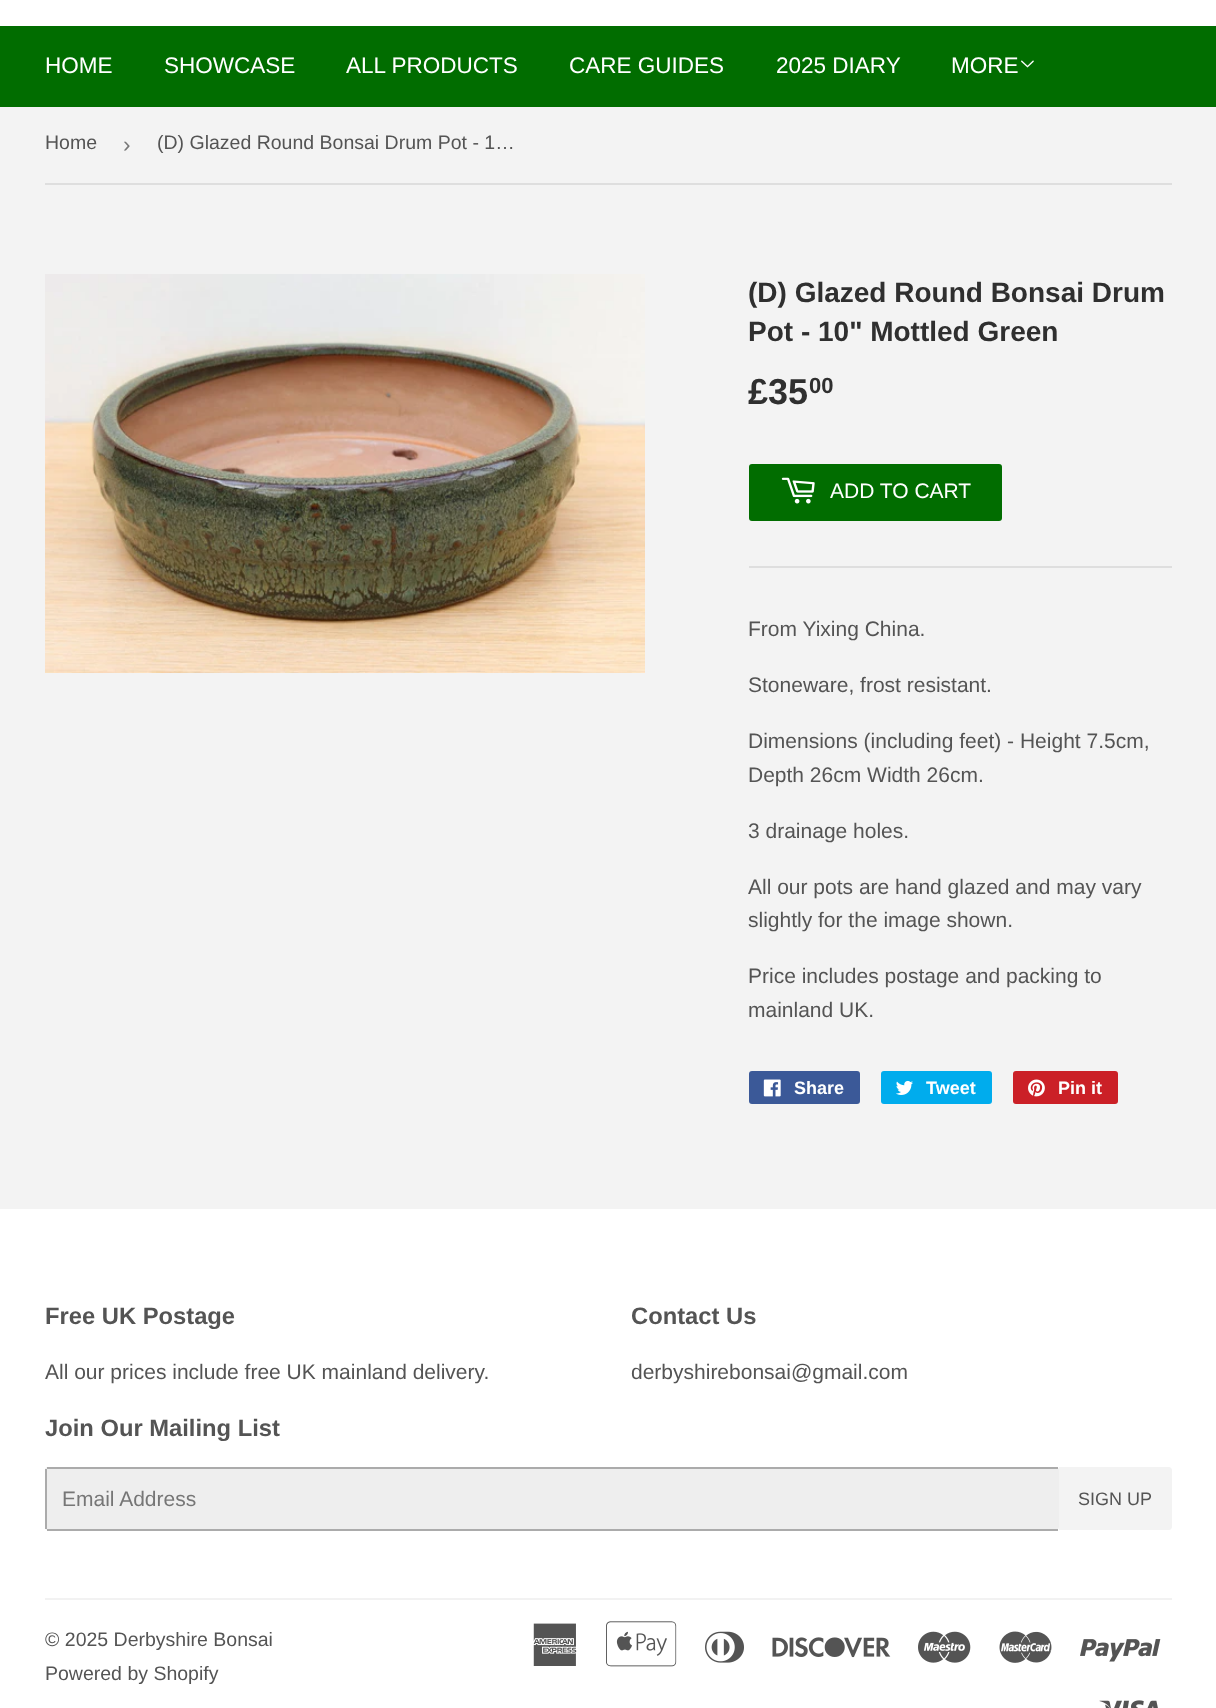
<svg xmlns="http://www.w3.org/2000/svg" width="1216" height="1708">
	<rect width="100%" height="100%" fill="#F3F3F3" />
	<rect x="0" y="0" width="1216" height="26" fill="#FFFFFF" />
	<rect x="0" y="26" width="1216" height="81" fill="#016D00" />
	<g font-family="Liberation Sans" font-size="22.5" fill="#FFFFFF">
		<text x="45" y="73">HOME</text>
		<text x="164" y="73">SHOWCASE</text>
		<text x="346" y="73">ALL PRODUCTS</text>
		<text x="569" y="73">CARE GUIDES</text>
		<text x="776" y="73">2025 DIARY</text>
		<text x="951" y="73">MORE</text>
	</g>
	<image x="1021" y="60" width="13" height="8" href="assets/img1.png" />
	<rect x="45" y="183" width="1127" height="2" fill="#DEDEDE" />
	<text x="45" y="149" font-family="Liberation Sans" font-size="19.5" fill="#545454">Home</text>
	<text x="123" y="152" font-family="Liberation Sans" font-size="22.5" fill="#767676">›</text>
	<text x="157" y="149" font-family="Liberation Sans" font-size="19.5" fill="#545454">(D) Glazed Round Bonsai Drum Pot - 1…</text>
	<image x="45" y="274" width="600" height="399" href="assets/img2.png" />
	<g font-family="Liberation Sans" font-size="28" font-weight="700" fill="#2F2F2F">
		<text x="748" y="302">(D) Glazed Round Bonsai Drum</text>
		<text x="748" y="341">Pot - 10" Mottled Green</text>
	</g>
	<text x="748" y="404" font-family="Liberation Sans" font-size="36" font-weight="700" fill="#2F2F2F">£35</text>
	<text x="809" y="393" font-family="Liberation Sans" font-size="22" font-weight="700" fill="#2F2F2F">00</text>
	<rect x="749" y="464" width="253" height="57" rx="3" fill="#016D00" />
	<image x="781" y="477" width="34" height="27" href="assets/img3.png" />
	<text x="830" y="498" font-family="Liberation Sans" font-size="21" fill="#FFFFFF">ADD TO CART</text>
	<rect x="749" y="566" width="423" height="2" fill="#DEDEDE" />
	<g font-family="Liberation Sans" font-size="21" fill="#545454">
		<text x="748" y="636">From Yixing China.</text>
		<text x="748" y="692">Stoneware, frost resistant.</text>
		<text x="748" y="748">Dimensions (including feet) - Height 7.5cm,</text>
		<text x="748" y="782">Depth 26cm Width 26cm.</text>
		<text x="748" y="838">3 drainage holes.</text>
		<text x="748" y="894">All our pots are hand glazed and may vary</text>
		<text x="748" y="927">slightly for the image shown.</text>
		<text x="748" y="983">Price includes postage and packing to</text>
		<text x="748" y="1017">mainland UK.</text>
	</g>
	<rect x="749" y="1071" width="111" height="33" rx="3" fill="#3B5998" />
	<image x="763" y="1079" width="18" height="18" href="assets/img4.png" />
	<text x="794" y="1094" font-family="Liberation Sans" font-size="18" font-weight="700" fill="#FFFFFF">Share</text>
	<rect x="881" y="1071" width="111" height="33" rx="3" fill="#00ACED" />
	<image x="896" y="1080" width="17" height="15" href="assets/img5.png" />
	<text x="926" y="1094" font-family="Liberation Sans" font-size="18" font-weight="700" fill="#FFFFFF">Tweet</text>
	<rect x="1013" y="1071" width="105" height="33" rx="3" fill="#CB2027" />
	<image x="1028" y="1079" width="17" height="18" href="assets/img6.png" />
	<text x="1058" y="1094" font-family="Liberation Sans" font-size="18" font-weight="700" fill="#FFFFFF">Pin it</text>
	<rect x="0" y="1209" width="1216" height="499" fill="#FFFFFF" />
	<text x="45" y="1324" font-family="Liberation Sans" font-size="23.75" font-weight="700" fill="#545454">Free UK Postage</text>
	<text x="45" y="1379" font-family="Liberation Sans" font-size="21" fill="#545454">All our prices include free UK mainland delivery.</text>
	<text x="631" y="1324" font-family="Liberation Sans" font-size="23.75" font-weight="700" fill="#545454">Contact Us</text>
	<text x="631" y="1379" font-family="Liberation Sans" font-size="21" fill="#545454">derbyshirebonsai@gmail.com</text>
	<text x="45" y="1436" font-family="Liberation Sans" font-size="23.75" font-weight="700" fill="#545454">Join Our Mailing List</text>
	<rect x="45" y="1467" width="1014" height="63" rx="3" fill="#EEEEEE" />
	<rect x="47" y="1467" width="1011" height="2" fill="#ABABAB" />
	<rect x="47" y="1529" width="1011" height="2" fill="#ABABAB" />
	<rect x="45" y="1469" width="2" height="60" fill="#ABABAB" />
	<text x="62" y="1506" font-family="Liberation Sans" font-size="21" fill="#767676">Email Address</text>
	<path d="M1059 1467H1169C1170.5 1467 1172 1468.5 1172 1470V1527C1172 1528.5 1170.5 1530 1169 1530H1059Z" fill="#F3F3F3" />
	<text x="1078" y="1505" font-family="Liberation Sans" font-size="18" fill="#545454">SIGN UP</text>
	<rect x="45" y="1598" width="1127" height="2" fill="#F2F2F2" />
	<g font-family="Liberation Sans" font-size="19.5" fill="#545454">
		<text x="45" y="1646">© 2025 Derbyshire Bonsai</text>
		<text x="45" y="1680">Powered by Shopify</text>
	</g>
	<image x="533" y="1623" width="44" height="43" href="assets/img7.png" />
	<image x="606" y="1621" width="71" height="46" href="assets/img8.png" />
	<image x="705" y="1631" width="39" height="32" href="assets/img9.png" />
	<image x="772" y="1637" width="119" height="21" href="assets/img10.png" />
	<image x="918" y="1631" width="53" height="32" href="assets/img11.png" />
	<image x="999" y="1631" width="53" height="32" href="assets/img12.png" />
	<image x="1080" y="1639" width="81" height="23" href="assets/img13.png" />
	<image x="1099" y="1700" width="59" height="8" href="assets/img14.png" />
</svg>
